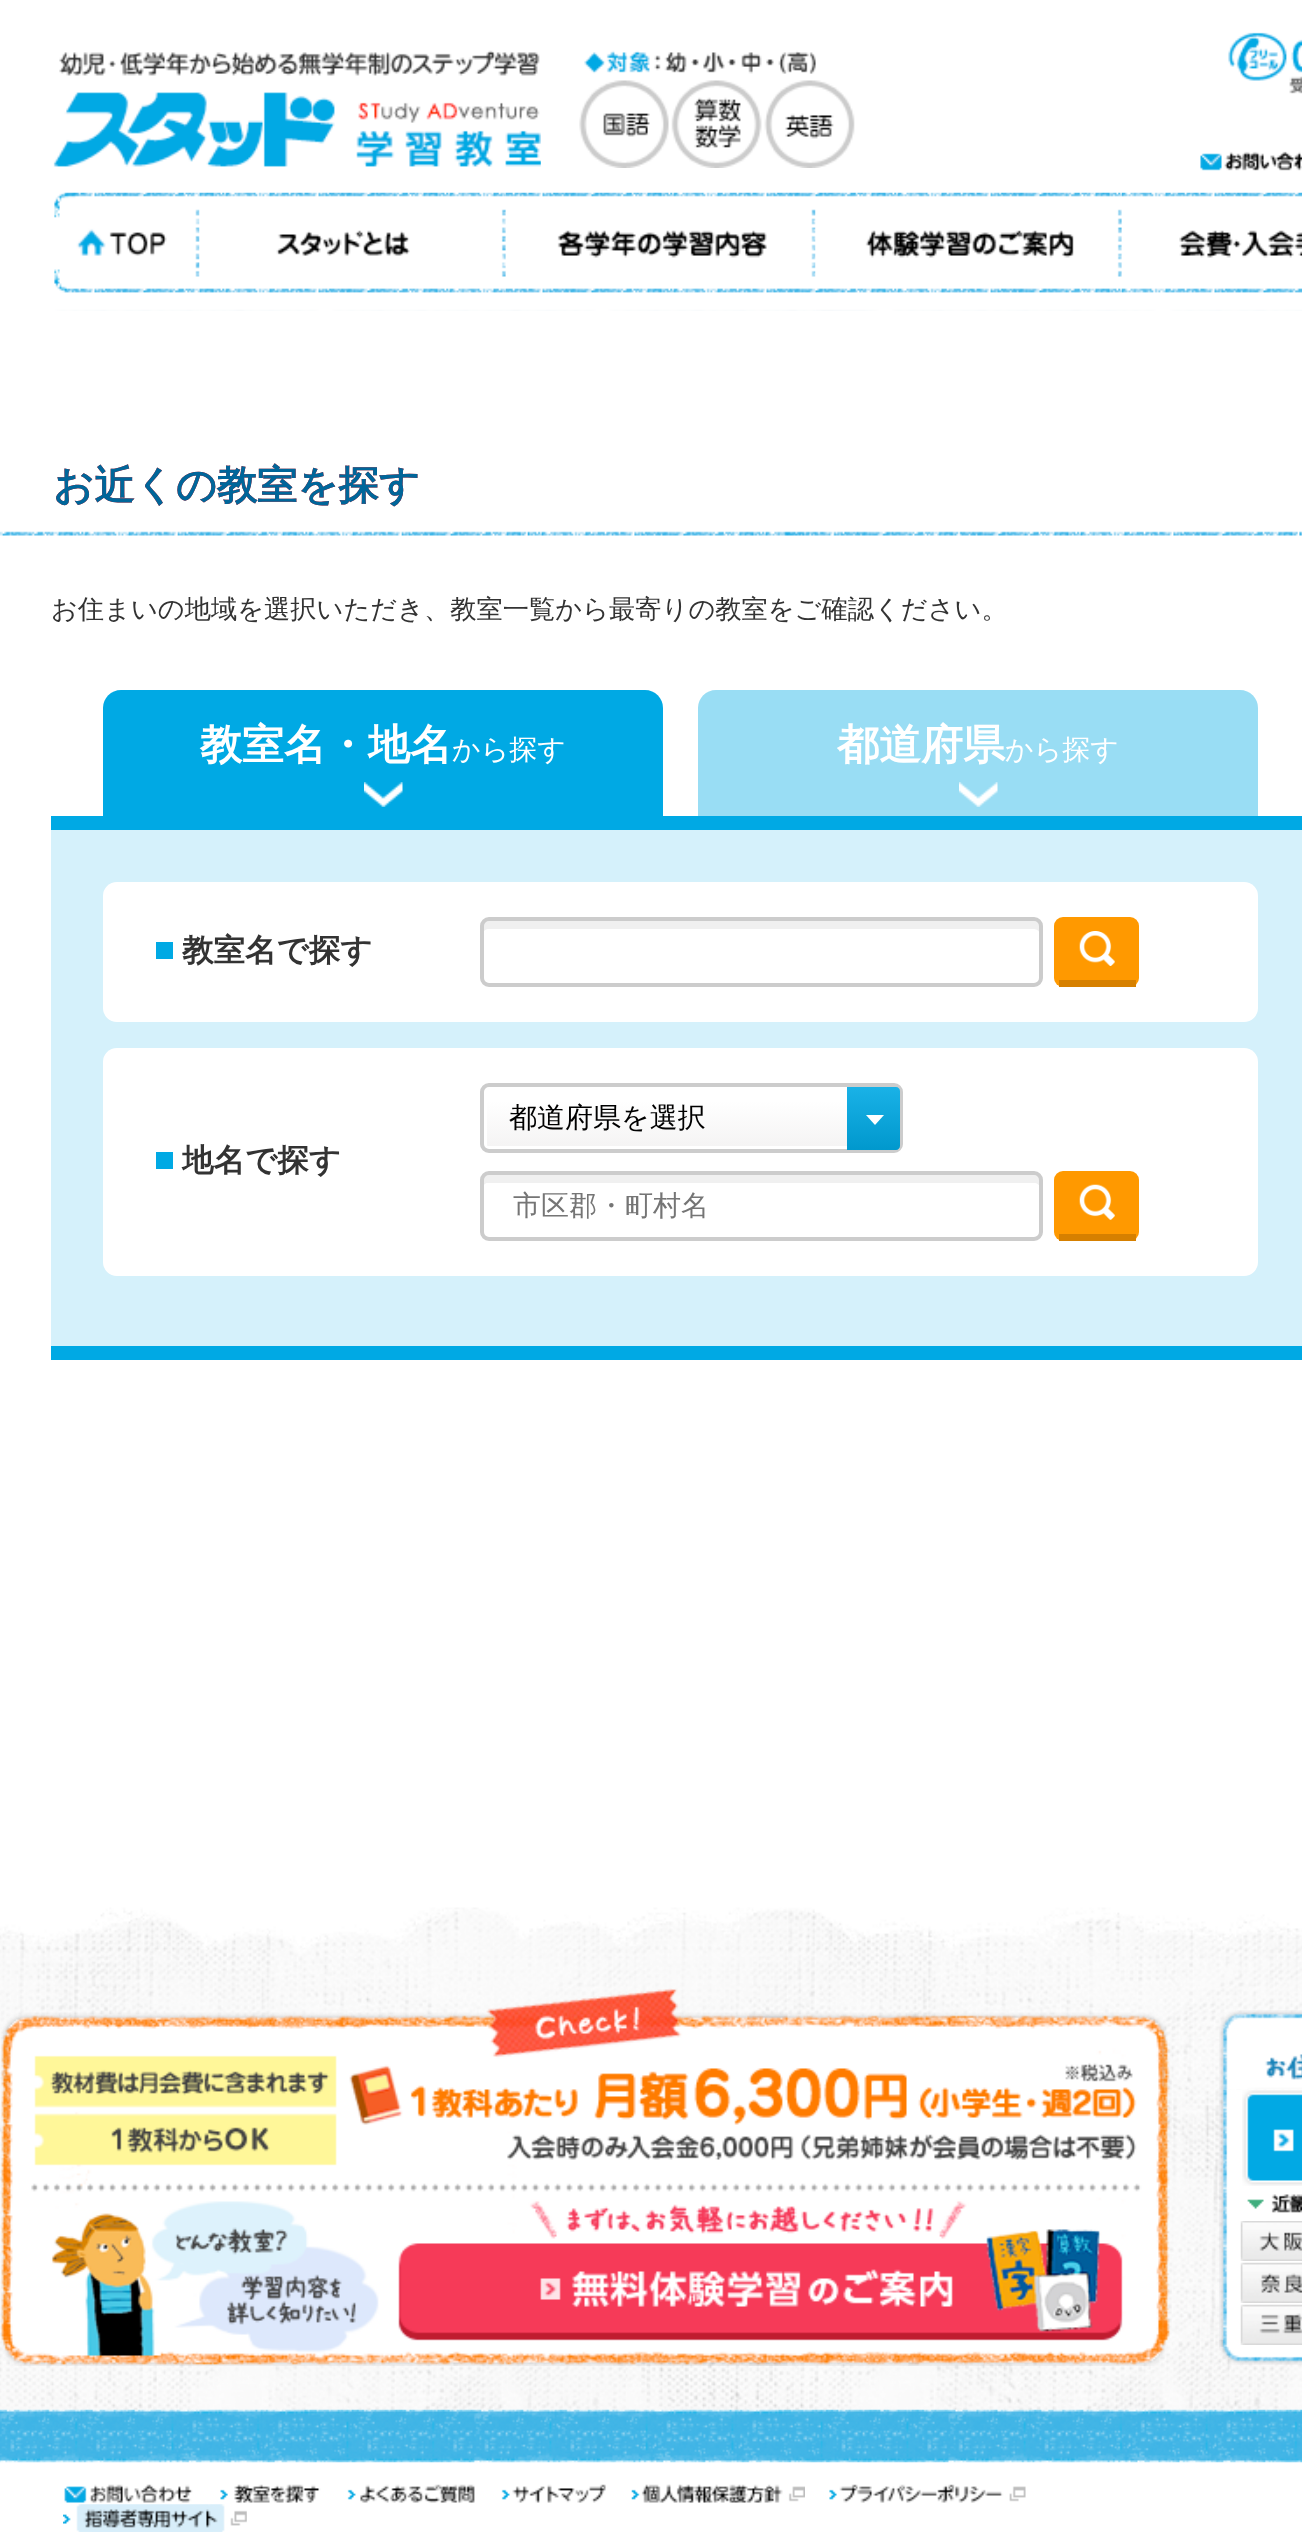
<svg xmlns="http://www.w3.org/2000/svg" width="1302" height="2544">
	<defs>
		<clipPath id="clip1"><rect x="480" y="1083" width="423" height="70" rx="9" /></clipPath>
		<linearGradient id="g1" gradientUnits="userSpaceOnUse" x1="691" y1="1150" x2="691" y2="1087"><stop offset="0" stop-color="#F4F3F3" /><stop offset="0.78" stop-color="#FFFFFF" /></linearGradient>
		<linearGradient id="g2" gradientUnits="userSpaceOnUse" x1="873" y1="1150" x2="873" y2="1087"><stop offset="0" stop-color="#030000" stop-opacity="0.1" /><stop offset="1" stop-color="#FFFFFF" stop-opacity="0.1" /></linearGradient>
	</defs>
	<rect width="100%" height="100%" fill="#FFFFFF" />
	<image x="0" y="531" width="1302" height="5" href="assets/img1.png" />
	<image x="59" y="50" width="481" height="26" href="assets/img2.png" />
	<image x="579" y="50" width="276" height="118" href="assets/img3.png" />
	<image x="53" y="92" width="488" height="75" href="assets/img4.png" />
	<image x="1228" y="32" width="74" height="62" href="assets/img5.png" />
	<image x="1200" y="151" width="102" height="20" href="assets/img6.png" />
	<image x="54" y="192" width="146" height="119" href="assets/img7.png" />
	<image x="199" y="192" width="307" height="119" href="assets/img8.png" />
	<image x="505" y="192" width="311" height="119" href="assets/img9.png" />
	<image x="815" y="192" width="307" height="119" href="assets/img10.png" />
	<image x="1121" y="192" width="181" height="119" href="assets/img11.png" />
	<text x="53" y="499" font-family="WenQuanYi Zen Hei" font-size="40.25" font-weight="700" fill="#FF0000">お近くの教室を探す</text>
	<text x="53" y="499" font-family="WenQuanYi Zen Hei" font-size="40.25" font-weight="700" fill="#00669A">お近くの教室を探す</text>
	<text x="51" y="618" font-family="WenQuanYi Zen Hei" font-size="26.25" font-weight="500" fill="#333333">お住まいの地域を選択いただき、教室一覧から最寄りの教室をご確認ください。</text>
	<path d="M121 690H645C655 690 663 698 663 708V816H103V708C103 698 111 690 121 690Z" fill="#00A9E4" />
	<text x="200" y="759" font-family="WenQuanYi Zen Hei" font-size="42" font-weight="700" fill="#FFFFFF">教室名・地名</text>
	<text x="452" y="759" font-family="WenQuanYi Zen Hei" font-size="28" font-weight="500" fill="#FFFFFF">から探す</text>
	<image x="364" y="782" width="39" height="25" href="assets/img12.png" />
	<path d="M716 690H1240C1250 690 1258 698 1258 708V816H698V708C698 698 706 690 716 690Z" fill="#99DDF4" />
	<text x="837" y="759" font-family="WenQuanYi Zen Hei" font-size="42" font-weight="700" fill="#FFFFFF">都道府県</text>
	<text x="1005" y="759" font-family="WenQuanYi Zen Hei" font-size="28" font-weight="500" fill="#FFFFFF">から探す</text>
	<image x="959" y="782" width="39" height="25" href="assets/img13.png" />
	<rect x="51" y="830" width="1251" height="516" fill="#D5F1FB" />
	<rect x="51" y="816" width="1251" height="14" fill="#00A9E4" />
	<rect x="51" y="1346" width="1251" height="14" fill="#00A9E4" />
	<rect x="103" y="882" width="1155" height="140" rx="14" fill="#FFFFFF" />
	<rect x="156" y="942" width="17" height="17" fill="#00A9E4" />
	<text x="182" y="961" font-family="WenQuanYi Zen Hei" font-size="31.5" font-weight="700" fill="#333333">教室名で探す</text>
	<path d="M488 929H1034C1037 929 1040 932 1040 934V926C1040 923 1038 921 1035 921H488C485 921 483 923 483 926V934C483 932 485 929 488 929Z" fill="#F0F0F0" />
	<rect x="482" y="919" width="559" height="66" rx="7" fill="none" stroke="#CCCCCC" stroke-width="4" />
	<rect x="1054" y="917" width="85" height="70" rx="9" fill="#FF9900" />
	<image x="1079" y="931" width="36" height="35" href="assets/img14.png" />
	<rect x="1059" y="980" width="77" height="7" fill="#D68000" />
	<rect x="103" y="1048" width="1155" height="228" rx="14" fill="#FFFFFF" />
	<rect x="156" y="1152" width="17" height="17" fill="#00A9E4" />
	<text x="182" y="1171" font-family="WenQuanYi Zen Hei" font-size="31.5" font-weight="700" fill="#333333">地名で探す</text>
	<g clip-path="url(#clip1)">
		<rect x="480" y="1087" width="423" height="63" fill="url(#g1)" />
	</g>
	<rect x="485" y="1089" width="413" height="59" rx="3" fill="none" stroke="#FFFFFF" stroke-width="4" />
	<rect x="482" y="1085" width="419" height="66" rx="7" fill="none" stroke="#CCCCCC" stroke-width="4" />
	<text x="509" y="1127" font-family="WenQuanYi Zen Hei" font-size="28" font-weight="500" fill="#000000">都道府県を選択</text>
	<path d="M847 1087H896C898 1087 900 1089 900 1091V1146C900 1148 898 1150 896 1150H847Z" fill="#00A9E4" />
	<path d="M847 1087H896C898 1087 900 1089 900 1091V1146C900 1148 898 1150 896 1150H847Z" fill="url(#g2)" />
	<path d="M866 1115H884L875 1125Z" fill="#FFFFFF" />
	<path d="M488 1183H1034C1037 1183 1040 1185 1040 1188V1179C1040 1176 1038 1174 1035 1174H488C485 1174 483 1176 483 1179V1188C483 1185 485 1183 488 1183Z" fill="#F0F0F0" />
	<rect x="482" y="1173" width="559" height="66" rx="7" fill="none" stroke="#CCCCCC" stroke-width="4" />
	<text x="513" y="1215" font-family="WenQuanYi Zen Hei" font-size="28" font-weight="500" fill="#757575">市区郡・町村名</text>
	<rect x="1054" y="1171" width="85" height="70" rx="9" fill="#FF9900" />
	<image x="1079" y="1184" width="36" height="36" href="assets/img15.png" />
	<rect x="1059" y="1234" width="77" height="7" fill="#D68000" />
	<image x="0" y="1907" width="1302" height="503" href="assets/img16.png" />
	<image x="1" y="1988" width="1169" height="378" href="assets/img17.png" />
	<image x="1219" y="2010" width="83" height="80" href="assets/img18.png" />
	<image x="1219" y="2339" width="83" height="26" href="assets/img19.png" />
	<image x="1219" y="2089" width="83" height="258" href="assets/img20.png" />
	<image x="1242" y="2090" width="60" height="96" href="assets/img21.png" />
	<image x="1247" y="2194" width="55" height="19" href="assets/img22.png" />
	<image x="1240" y="2221" width="62" height="40" href="assets/img23.png" />
	<image x="1240" y="2262" width="62" height="41" href="assets/img24.png" />
	<image x="1240" y="2304" width="62" height="41" href="assets/img25.png" />
	<image x="0" y="2409" width="1302" height="54" href="assets/img26.png" />
	<image x="64" y="2484" width="129" height="19" href="assets/img27.png" />
	<image x="220" y="2484" width="101" height="19" href="assets/img28.png" />
	<image x="347" y="2484" width="128" height="19" href="assets/img29.png" />
	<image x="501" y="2484" width="105" height="19" href="assets/img30.png" />
	<image x="631" y="2484" width="174" height="19" href="assets/img31.png" />
	<image x="829" y="2484" width="197" height="19" href="assets/img32.png" />
	<image x="63" y="2504" width="184" height="28" href="assets/img33.png" />
</svg>
